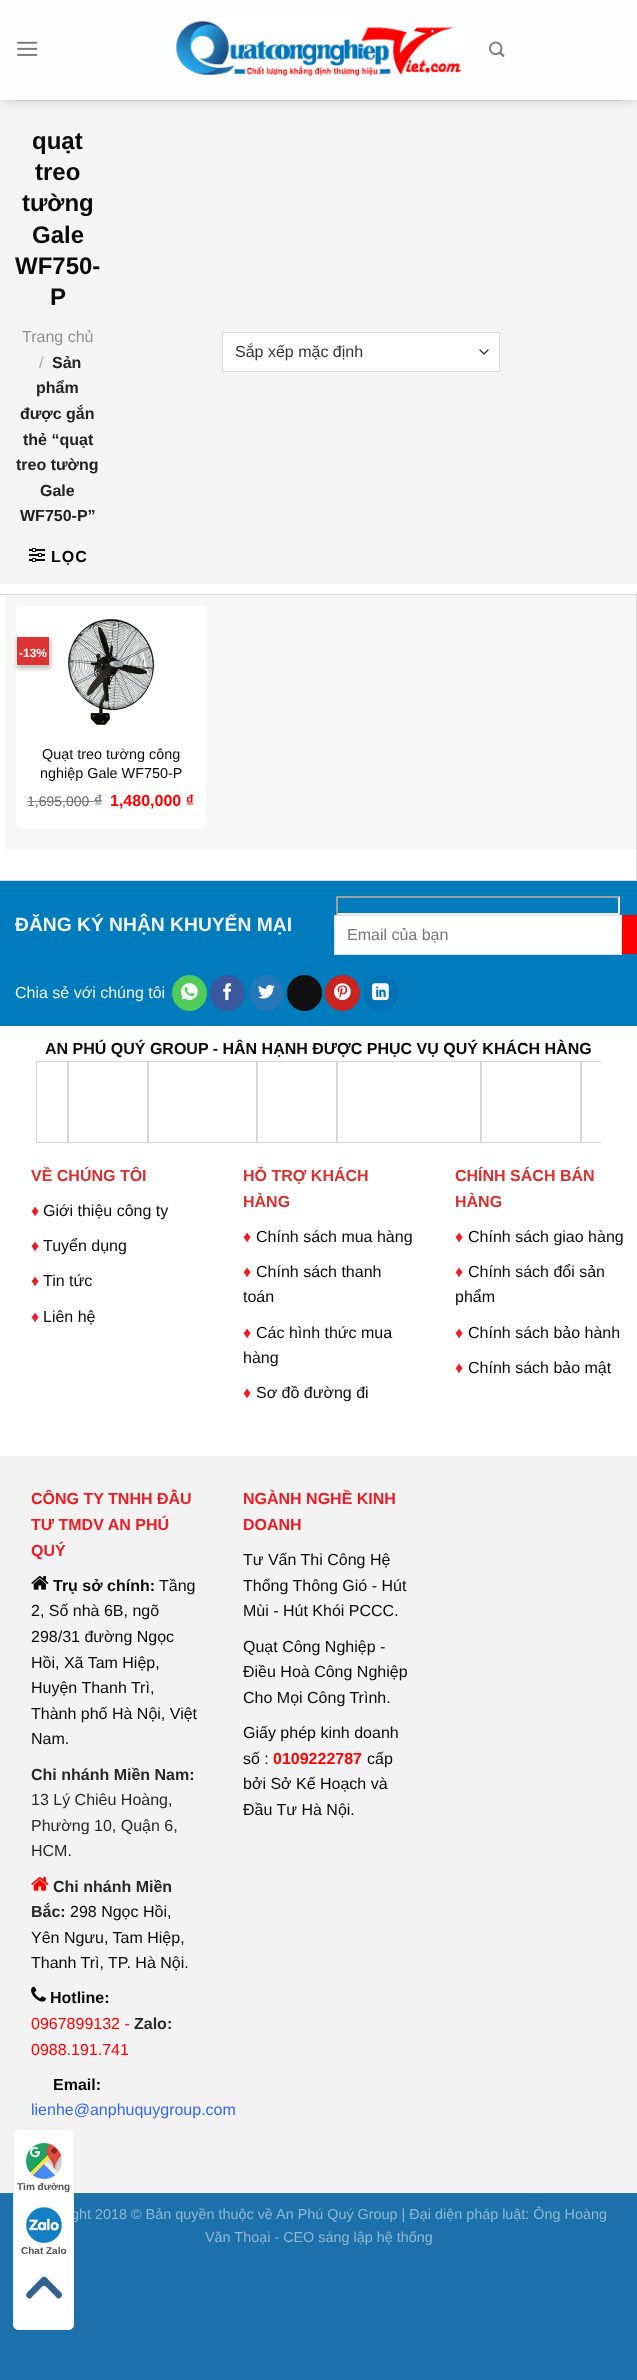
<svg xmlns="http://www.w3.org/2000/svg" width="637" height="2380">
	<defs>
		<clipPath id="clip1"><rect x="36" y="1061" width="565" height="82" /></clipPath>
	</defs>
	<rect width="100%" height="100%" fill="#1D71AB" />
	<rect x="0" y="100" width="637" height="484" fill="#F5F4F4" />
	<rect x="1" y="1" width="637" height="100" fill="#000000" fill-opacity="0.15" filter="blur(5px)" />
	<rect x="0" y="0" width="637" height="100" fill="#FEFEFE" />
	<image x="17" y="41" width="21" height="15" href="assets/img1.png" />
	<image x="175" y="20" width="286" height="56" href="assets/img2.png" />
	<image x="489" y="41" width="16" height="16" href="assets/img3.png" />
	<rect x="15" y="100" width="607" height="1" fill="#CCCBCB" />
	<g font-family="Liberation Sans" font-size="24" font-weight="700" fill="#0A0A0A">
		<text x="32" y="149">quạt</text>
		<text x="35" y="180">treo</text>
		<text x="22" y="211">tường</text>
		<text x="32" y="243">Gale</text>
		<text x="15" y="274">WF750-</text>
		<text x="50" y="305">P</text>
	</g>
	<text x="22" y="342" font-family="Liberation Sans" font-size="16" fill="#919191">Trang chủ</text>
	<text x="39" y="368" font-family="Liberation Sans" font-size="16" fill="#ABAAAA">/</text>
	<g font-family="Liberation Sans" font-size="16" font-weight="700" fill="#222222">
		<text x="52" y="368">Sản</text>
		<text x="36" y="393">phẩm</text>
		<text x="20" y="419">được gắn</text>
		<text x="23" y="445">thẻ “quạt</text>
		<text x="16" y="470">treo tường</text>
		<text x="40" y="496">Gale</text>
		<text x="20" y="521">WF750-P”</text>
	</g>
	<image x="29" y="548" width="16" height="14" href="assets/img4.png" />
	<text x="51" y="562" font-family="Liberation Sans" font-size="16" font-weight="700" letter-spacing="1" fill="#0A0A0A">LỌC</text>
	<rect x="223" y="333" width="276" height="38" fill="#FFFFFF" />
	<path d="M480 350L484 354L488 350" fill="none" stroke="#333333" stroke-width="1.3" stroke-linecap="round" stroke-linejoin="round" />
	<rect x="222.5" y="332.5" width="277" height="39" fill="none" stroke="#DDDDDD" />
	<text x="235" y="357" font-family="Liberation Sans" font-size="16" fill="#333333">Sắp xếp mặc định</text>
	<rect x="0" y="584" width="637" height="296" fill="#FFFFFF" />
	<rect x="0" y="594" width="637" height="1" fill="#DBDBDB" />
	<rect x="636" y="594" width="1" height="287" fill="#DBDBDB" />
	<rect x="0" y="880" width="637" height="1" fill="#DBDBDB" />
	<rect x="5" y="595" width="631" height="255" fill="#F7F7F7" />
	<rect x="16" y="606" width="190" height="223" rx="5" fill="#FFFFFF" />
	<rect x="17" y="639" width="34" height="30" fill="#000000" fill-opacity="0.24" filter="blur(2px)" />
	<rect x="17" y="637" width="32" height="28" fill="#DD3333" />
	<text x="19" y="657" font-family="Liberation Sans" font-size="12" font-weight="700" fill="#FFFFFF">-13%</text>
	<image x="67" y="619" width="88" height="106" href="assets/img5.png" />
	<g font-family="Liberation Sans" font-size="14.4" fill="#0A0A0A">
		<text x="42" y="759">Quạt treo tường công</text>
		<text x="40" y="778">nghiệp Gale WF750-P</text>
	</g>
	<text x="27" y="806" font-family="Liberation Sans" font-size="14" fill="#666666">1,695,000</text>
	<rect x="27" y="801" width="67" height="1" fill="#858585" />
	<text x="94" y="806" font-family="Liberation Sans" font-size="16" font-weight="700" fill="#858585">₫</text>
	<rect x="94" y="800" width="8" height="1" fill="#858585" />
	<text x="110" y="806" font-family="Liberation Sans" font-size="16" font-weight="700" fill="#FF0000">1,480,000 ₫</text>
	<rect x="0" y="881" width="637" height="145" fill="#007CBC" />
	<text x="15" y="931" font-family="Liberation Sans" font-size="19.25" font-weight="700" fill="#F1F1F1">ĐĂNG KÝ NHẬN KHUYẾN MẠI</text>
	<path d="M336 896H620L618 898H338Z" fill="#9F9F9F" />
	<path d="M620 896V915L618 913V898Z" fill="#EFEFEF" />
	<path d="M620 915H336L338 913H618Z" fill="#EFEFEF" />
	<path d="M336 915V896L338 898V913Z" fill="#9F9F9F" />
	<rect x="334.5" y="915.5" width="287" height="39" fill="#FFFFFF" stroke="#DDDDDD" />
	<text x="347" y="940" font-family="Liberation Sans" font-size="16" fill="#757575">Email của bạn</text>
	<rect x="622.5" y="915.5" width="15" height="38" fill="#FF0000" stroke="#F20000" />
	<text x="15" y="998" font-family="Liberation Sans" font-size="16" fill="#F1F1F1">Chia sẻ với chúng tôi</text>
	<rect x="172.5" y="975.5" width="34" height="35" rx="17" fill="#51CB5A" stroke="#51CB5A" />
	<image x="181" y="983" width="17" height="17" href="assets/img6.png" />
	<rect x="210.5" y="975.5" width="34" height="35" rx="17" fill="#3A589D" stroke="#3A589D" />
	<image x="223" y="983" width="8" height="18" href="assets/img7.png" />
	<rect x="249.5" y="975.5" width="34" height="35" rx="17" fill="#2478BA" stroke="#2478BA" />
	<image x="258" y="984" width="17" height="15" href="assets/img8.png" />
	<rect x="287.5" y="975.5" width="34" height="35" rx="17" fill="#111111" stroke="#111111" />
	<rect x="325.5" y="975.5" width="34" height="35" rx="17" fill="#CB2320" stroke="#CB2320" />
	<image x="334" y="983" width="17" height="17" href="assets/img9.png" />
	<rect x="363" y="975" width="35" height="36" rx="17.5" fill="#0072B7" />
	<image x="372" y="983" width="17" height="18" href="assets/img10.png" />
	<rect x="0" y="1026" width="637" height="430" fill="#FFFFFF" />
	<text x="45" y="1054" font-family="Liberation Sans" font-size="16" font-weight="700" fill="#0A0A0A">AN PHÚ QUÝ GROUP - HÂN HẠNH ĐƯỢC PHỤC VỤ QUÝ KHÁCH HÀNG</text>
	<rect x="36.5" y="1061.5" width="31" height="81" fill="none" stroke="#D6D6D6" />
	<rect x="68.5" y="1061.5" width="79" height="81" fill="none" stroke="#D6D6D6" />
	<rect x="148.5" y="1061.5" width="108" height="81" fill="none" stroke="#D6D6D6" />
	<rect x="257.5" y="1061.5" width="79" height="81" fill="none" stroke="#D6D6D6" />
	<rect x="337.5" y="1061.5" width="143" height="81" fill="none" stroke="#D6D6D6" />
	<rect x="481.5" y="1061.5" width="99" height="81" fill="none" stroke="#D6D6D6" />
	<g clip-path="url(#clip1)">
		<rect x="581.5" y="1061.5" width="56" height="81" fill="none" stroke="#D6D6D6" />
	</g>
	<text x="31" y="1181" font-family="Liberation Sans" font-size="16" font-weight="700" fill="#D83131">VỀ CHÚNG TÔI</text>
	<text x="31" y="1216" font-family="Liberation Sans" font-size="16" fill="#ED1C24">♦</text>
	<text x="43" y="1216" font-family="Liberation Sans" font-size="16" fill="#0A0A0A">Giới thiệu công ty</text>
	<text x="31" y="1251" font-family="Liberation Sans" font-size="16" fill="#ED1C24">♦</text>
	<text x="43" y="1251" font-family="Liberation Sans" font-size="16" fill="#0A0A0A">Tuyển dụng</text>
	<text x="31" y="1286" font-family="Liberation Sans" font-size="16" fill="#ED1C24">♦</text>
	<text x="43" y="1286" font-family="Liberation Sans" font-size="16" fill="#0A0A0A">Tin tức</text>
	<text x="31" y="1322" font-family="Liberation Sans" font-size="16" fill="#ED1C24">♦</text>
	<text x="43" y="1322" font-family="Liberation Sans" font-size="16" fill="#0A0A0A">Liên hệ</text>
	<g font-family="Liberation Sans" font-size="16" font-weight="700" fill="#D83131">
		<text x="243" y="1181">HỖ TRỢ KHÁCH</text>
		<text x="243" y="1207">HÀNG</text>
	</g>
	<text x="243" y="1242" font-family="Liberation Sans" font-size="16" fill="#ED1C24">♦</text>
	<text x="256" y="1242" font-family="Liberation Sans" font-size="16" fill="#0A0A0A">Chính sách mua hàng</text>
	<text x="243" y="1277" font-family="Liberation Sans" font-size="16" fill="#ED1C24">♦</text>
	<g font-family="Liberation Sans" font-size="16" fill="#0A0A0A">
		<text x="256" y="1277">Chính sách thanh</text>
		<text x="243" y="1302">toán</text>
	</g>
	<text x="243" y="1338" font-family="Liberation Sans" font-size="16" fill="#ED1C24">♦</text>
	<g font-family="Liberation Sans" font-size="16" fill="#0A0A0A">
		<text x="256" y="1338">Các hình thức mua</text>
		<text x="243" y="1363">hàng</text>
	</g>
	<text x="243" y="1398" font-family="Liberation Sans" font-size="16" fill="#ED1C24">♦</text>
	<text x="256" y="1398" font-family="Liberation Sans" font-size="16" fill="#0A0A0A">Sơ đồ đường đi</text>
	<g font-family="Liberation Sans" font-size="16" font-weight="700" fill="#D83131">
		<text x="455" y="1181">CHÍNH SÁCH BÁN</text>
		<text x="455" y="1207">HÀNG</text>
	</g>
	<text x="455" y="1242" font-family="Liberation Sans" font-size="16" fill="#ED1C24">♦</text>
	<text x="468" y="1242" font-family="Liberation Sans" font-size="16" fill="#0A0A0A">Chính sách giao hàng</text>
	<text x="455" y="1277" font-family="Liberation Sans" font-size="16" fill="#ED1C24">♦</text>
	<g font-family="Liberation Sans" font-size="16" fill="#0A0A0A">
		<text x="468" y="1277">Chính sách đổi sản</text>
		<text x="455" y="1302">phẩm</text>
	</g>
	<text x="455" y="1338" font-family="Liberation Sans" font-size="16" fill="#ED1C24">♦</text>
	<text x="468" y="1338" font-family="Liberation Sans" font-size="16" fill="#0A0A0A">Chính sách bảo hành</text>
	<text x="455" y="1373" font-family="Liberation Sans" font-size="16" fill="#ED1C24">♦</text>
	<text x="468" y="1373" font-family="Liberation Sans" font-size="16" fill="#0A0A0A">Chính sách bảo mật</text>
	<rect x="0" y="1456" width="637" height="737" fill="#F3F3F3" />
	<g font-family="Liberation Sans" font-size="16" font-weight="700" fill="#ED1C24">
		<text x="31" y="1504">CÔNG TY TNHH ĐẦU</text>
		<text x="31" y="1530">TƯ TMDV AN PHÚ</text>
		<text x="31" y="1556">QUÝ</text>
	</g>
	<image x="31" y="1576" width="18" height="14" href="assets/img11.png" />
	<text x="53" y="1591" font-family="Liberation Sans" font-size="16" font-weight="700" fill="#0A0A0A">Trụ sở chính:</text>
	<g font-family="Liberation Sans" font-size="16" fill="#0A0A0A">
		<text x="159" y="1591">Tầng</text>
		<text x="31" y="1616">2, Số nhà 6B, ngõ</text>
		<text x="31" y="1642">298/31 đường Ngọc</text>
		<text x="31" y="1668">Hồi, Xã Tam Hiệp,</text>
		<text x="31" y="1693">Huyện Thanh Trì,</text>
		<text x="31" y="1719">Thành phố Hà Nội, Việt</text>
		<text x="31" y="1744">Nam.</text>
	</g>
	<text x="31" y="1780" font-family="Liberation Sans" font-size="16" font-weight="700" fill="#282828">Chi nhánh Miền Nam:</text>
	<g font-family="Liberation Sans" font-size="16" fill="#282828">
		<text x="31" y="1805">13 Lý Chiêu Hoàng,</text>
		<text x="31" y="1831">Phường 10, Quận 6,</text>
		<text x="31" y="1856">HCM.</text>
	</g>
	<image x="31" y="1877" width="18" height="14" href="assets/img12.png" />
	<g font-family="Liberation Sans" font-size="16" font-weight="700" fill="#282828">
		<text x="53" y="1892">Chi nhánh Miền</text>
		<text x="31" y="1917">Bắc:</text>
	</g>
	<g font-family="Liberation Sans" font-size="16" fill="#0A0A0A">
		<text x="70" y="1917">298 Ngọc Hồi,</text>
		<text x="31" y="1943">Yên Ngưu, Tam Hiệp,</text>
		<text x="31" y="1968">Thanh Trì, TP. Hà Nội.</text>
	</g>
	<image x="31" y="1986" width="15" height="16" href="assets/img13.png" />
	<text x="50" y="2003" font-family="Liberation Sans" font-size="16" font-weight="700" fill="#0A0A0A">Hotline:</text>
	<text x="31" y="2029" font-family="Liberation Sans" font-size="16" fill="#FF0000">0967899132 -</text>
	<text x="134" y="2029" font-family="Liberation Sans" font-size="16" font-weight="700" fill="#282828">Zalo:</text>
	<text x="31" y="2055" font-family="Liberation Sans" font-size="16" fill="#FF0000">0988.191.741</text>
	<text x="53" y="2090" font-family="Liberation Sans" font-size="16" font-weight="700" fill="#0A0A0A">Email:</text>
	<text x="31" y="2115" font-family="Liberation Sans" font-size="16" fill="#3366FF">lienhe@anphuquygroup.com</text>
	<g font-family="Liberation Sans" font-size="16" font-weight="700" fill="#ED1C24">
		<text x="243" y="1504">NGÀNH NGHỀ KINH</text>
		<text x="243" y="1530">DOANH</text>
	</g>
	<g font-family="Liberation Sans" font-size="16" fill="#0A0A0A">
		<text x="243" y="1565">Tư Vấn Thi Công Hệ</text>
		<text x="243" y="1591">Thống Thông Gió - Hút</text>
		<text x="243" y="1616">Mùi - Hút Khói PCCC.</text>
		<text x="243" y="1652">Quạt Công Nghiệp -</text>
		<text x="243" y="1677">Điều Hoà Công Nghiệp</text>
		<text x="243" y="1703">Cho Mọi Công Trình.</text>
		<text x="243" y="1738">Giấy phép kinh doanh</text>
		<text x="243" y="1764">số :</text>
	</g>
	<text x="273" y="1764" font-family="Liberation Sans" font-size="16" font-weight="700" fill="#FF0000">0109222787</text>
	<g font-family="Liberation Sans" font-size="16" fill="#0A0A0A">
		<text x="367" y="1764">cấp</text>
		<text x="243" y="1789">bởi Sở Kế Hoạch và</text>
		<text x="243" y="1815">Đầu Tư Hà Nội.</text>
	</g>
	<g font-family="Liberation Sans" font-size="14.4" fill="#8EB8D5">
		<text x="71" y="2219">ght 2018 © Bản quyền thuộc về An Phú Quý Group | Đại diện pháp luật: Ông Hoàng</text>
		<text x="205" y="2242">Văn Thoại - CEO sáng lập hệ thống</text>
	</g>
	<rect x="13.5" y="2129.5" width="60" height="200" rx="4.5" fill="#FFFFFF" stroke="#F2F2F2" />
	<image x="26" y="2143" width="36" height="36" href="assets/img14.png" />
	<text x="17" y="2190" font-family="Liberation Sans" font-size="10" font-weight="700" fill="#515151">Tìm đường</text>
	<image x="26" y="2207" width="36" height="36" href="assets/img15.png" />
	<text x="21" y="2254" font-family="Liberation Sans" font-size="10" font-weight="700" fill="#515151">Chat Zalo</text>
	<image x="26" y="2276" width="36" height="23" href="assets/img16.png" />
</svg>
